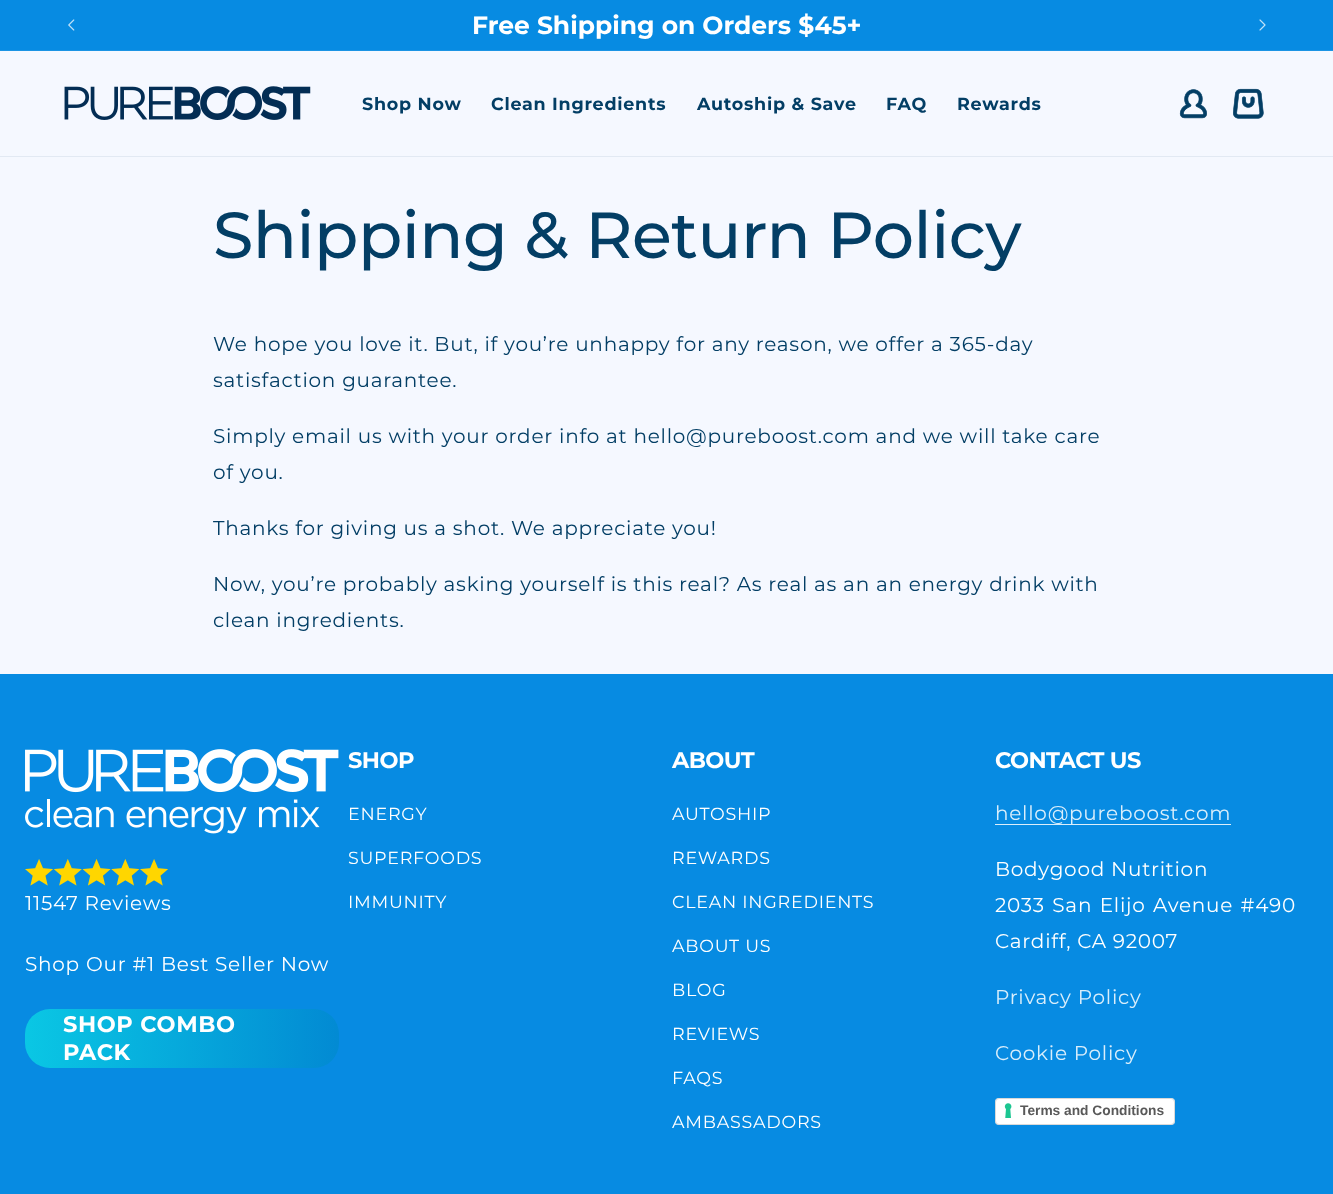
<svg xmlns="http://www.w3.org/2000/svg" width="1333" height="1194">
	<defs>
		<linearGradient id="g1" gradientUnits="userSpaceOnUse" x1="25" y1="1038" x2="339" y2="1038"><stop offset="0" stop-color="#0AC7E4" /><stop offset="1" stop-color="#028AD3" /></linearGradient>
	</defs>
	<rect width="100%" height="100%" fill="#F5F8FF" />
	<rect x="0" y="0" width="1333" height="50" fill="#078BE2" />
	<rect x="0" y="50" width="1333" height="1" fill="#1B94E4" />
	<image x="68" y="19" width="7" height="12" href="assets/img1.png" />
	<text x="472" y="34" font-family="Montserrat" font-size="25" font-weight="700" fill="#FFFFFF">Free Shipping on Orders $45+</text>
	<image x="1259" y="19" width="7" height="12" href="assets/img2.png" />
	<rect x="0" y="156" width="1333" height="1" fill="#E2E9F3" />
	<image x="64" y="86" width="247" height="34" href="assets/img3.png" />
	<g font-family="Montserrat" font-size="17.5" font-weight="700" letter-spacing="0.75" fill="#033E65">
		<text x="362" y="110">Shop Now</text>
		<text x="491" y="110">Clean Ingredients</text>
		<text x="697" y="110">Autoship &amp; Save</text>
		<text x="886" y="110">FAQ</text>
		<text x="957" y="110">Rewards</text>
	</g>
	<image x="1179" y="89" width="28" height="30" href="assets/img4.png" />
	<image x="1233" y="88" width="31" height="31" href="assets/img5.png" />
	<text x="213" y="258" font-family="Montserrat" font-size="65" font-weight="500" letter-spacing="-0.55" fill="#033E65">Shipping &amp; Return Policy</text>
	<g font-family="Montserrat" font-size="20" letter-spacing="0.75" fill="#033E65">
		<text x="213" y="351">We hope you love it. But, if you’re unhappy for any reason, we offer a 365-day</text>
		<text x="213" y="387">satisfaction guarantee.</text>
		<text x="213" y="443">Simply email us with your order info at hello@pureboost.com and we will take care</text>
		<text x="213" y="479">of you.</text>
		<text x="213" y="535">Thanks for giving us a shot. We appreciate you!</text>
		<text x="213" y="591">Now, you’re probably asking yourself is this real? As real as an an energy drink with</text>
		<text x="213" y="627">clean ingredients.</text>
	</g>
	<rect x="0" y="674" width="1333" height="520" fill="#078BE2" />
	<image x="25" y="749" width="314" height="85" href="assets/img6.png" />
	<image x="25" y="859" width="143" height="27" href="assets/img7.png" />
	<g font-family="Montserrat" font-size="20" letter-spacing="0.75" fill="#FFFFFF">
		<text x="25" y="910">11547 Reviews</text>
		<text x="25" y="971">Shop Our #1 Best Seller Now</text>
	</g>
	<rect x="25" y="1009" width="314" height="59" rx="25" fill="url(#g1)" />
	<g font-family="Montserrat" font-size="22.5" font-weight="700" letter-spacing="0.6" fill="#FFFFFF">
		<text x="63" y="1032">SHOP COMBO</text>
		<text x="63" y="1060">PACK</text>
	</g>
	<text x="348" y="768" font-family="Montserrat" font-size="22.5" font-weight="700" letter-spacing="-0.55" fill="#FFFFFF">SHOP</text>
	<g font-family="Montserrat" font-size="17.5" letter-spacing="0.75" fill="#FFFFFF">
		<text x="348" y="820">ENERGY</text>
		<text x="348" y="864">SUPERFOODS</text>
		<text x="348" y="908">IMMUNITY</text>
	</g>
	<text x="672" y="768" font-family="Montserrat" font-size="22.5" font-weight="700" letter-spacing="-0.55" fill="#FFFFFF">ABOUT</text>
	<g font-family="Montserrat" font-size="17.5" letter-spacing="0.75" fill="#FFFFFF">
		<text x="672" y="820">AUTOSHIP</text>
		<text x="672" y="864">REWARDS</text>
		<text x="672" y="908">CLEAN INGREDIENTS</text>
		<text x="672" y="952">ABOUT US</text>
		<text x="672" y="996">BLOG</text>
		<text x="672" y="1040">REVIEWS</text>
		<text x="672" y="1084">FAQS</text>
		<text x="672" y="1128">AMBASSADORS</text>
	</g>
	<text x="995" y="768" font-family="Montserrat" font-size="22.5" font-weight="700" letter-spacing="-0.55" fill="#FFFFFF">CONTACT US</text>
	<text x="995" y="820" font-family="Montserrat" font-size="20" letter-spacing="0.75" fill="#DAEEFB">hello@pureboost.com</text>
	<rect x="995" y="824" width="236" height="1" fill="#DAEEFB" />
	<g font-family="Montserrat" font-size="20" letter-spacing="0.75" fill="#FFFFFF">
		<text x="995" y="876">Bodygood Nutrition</text>
		<text x="995" y="912" word-spacing="1.5">2033 San Elijo Avenue #490</text>
		<text x="995" y="948">Cardiff, CA 92007</text>
	</g>
	<g font-family="Montserrat" font-size="20" letter-spacing="0.75" fill="#DAEEFB">
		<text x="995" y="1004">Privacy Policy</text>
		<text x="995" y="1060">Cookie Policy</text>
	</g>
	<rect x="996" y="1100" width="178" height="25" rx="2.5" fill="#000000" fill-opacity="0.15" filter="blur(0.5px)" />
	<rect x="995" y="1098" width="180" height="27" rx="4" fill="#FFFFFF" />
	<image x="1004" y="1103" width="8" height="15" href="assets/img8.png" />
	<rect x="995.5" y="1098.5" width="179" height="26" rx="3.5" fill="none" stroke="#000000" stroke-opacity="0.15" />
	<text x="1020" y="1115" font-family="Liberation Sans" font-size="13.75" font-weight="700" fill="#595959">Terms and Conditions</text>
</svg>
